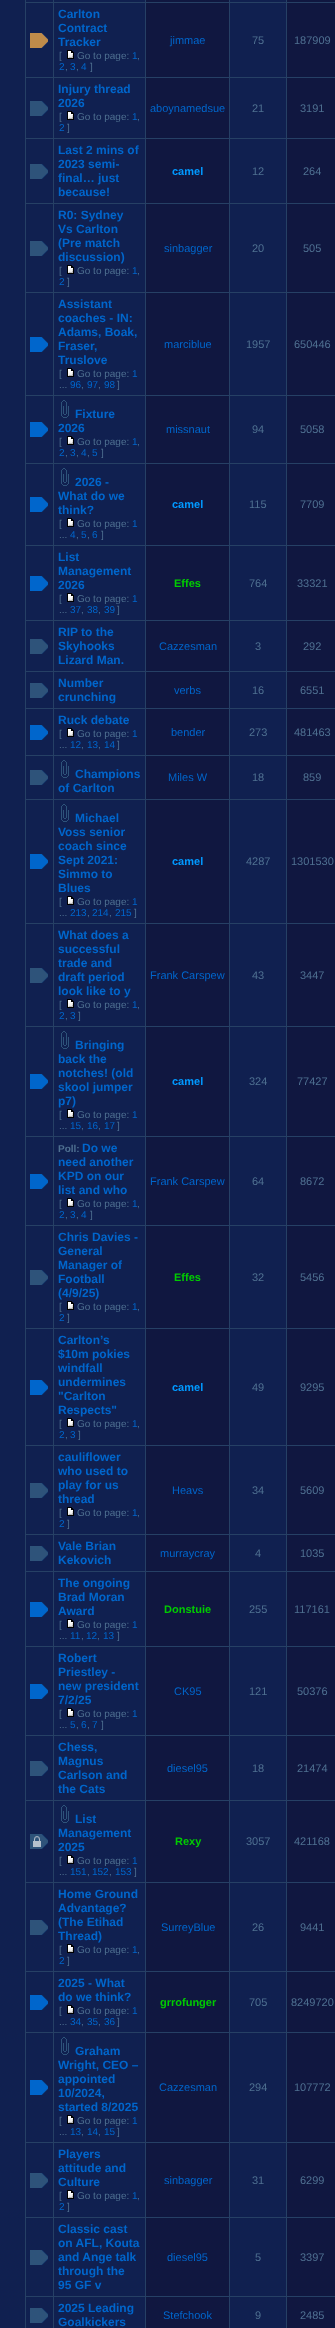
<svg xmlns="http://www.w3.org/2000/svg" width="335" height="2328">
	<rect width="100%" height="100%" fill="#102050" />
	<rect x="25" y="0" width="310" height="2328" fill="#264065" />
	<rect x="26" y="0" width="27" height="2" fill="#102050" />
	<rect x="54" y="0" width="91" height="2" fill="#102050" />
	<rect x="146" y="0" width="83" height="2" fill="#101740" />
	<rect x="230" y="0" width="56" height="2" fill="#102050" />
	<rect x="287" y="0" width="48" height="2" fill="#101740" />
	<rect x="26" y="3" width="27" height="74" fill="#102050" />
	<image x="30" y="33" width="18" height="15" href="assets/img1.png" />
	<rect x="54" y="3" width="91" height="74" fill="#102050" />
	<g font-family="Liberation Sans" font-size="12" font-weight="700" fill="#0066CC">
		<text x="58" y="18">Carlton</text>
		<text x="58" y="32">Contract</text>
		<text x="58" y="46">Tracker</text>
	</g>
	<text x="59" y="59" font-family="Liberation Sans" font-size="10" fill="#4F7091">[</text>
	<image x="67" y="50" width="7" height="9" href="assets/img2.png" />
	<text x="77" y="59" font-family="Liberation Sans" font-size="10" fill="#4F7091">Go to page:</text>
	<text x="132" y="59" font-family="Liberation Sans" font-size="10" fill="#0066CC">1</text>
	<text x="137" y="59" font-family="Liberation Sans" font-size="10" fill="#4F7091">,</text>
	<text x="59" y="70" font-family="Liberation Sans" font-size="10" fill="#0066CC">2</text>
	<text x="65" y="70" font-family="Liberation Sans" font-size="10" fill="#4F7091">,</text>
	<text x="70" y="70" font-family="Liberation Sans" font-size="10" fill="#0066CC">3</text>
	<text x="76" y="70" font-family="Liberation Sans" font-size="10" fill="#4F7091">,</text>
	<text x="81" y="70" font-family="Liberation Sans" font-size="10" fill="#0066CC">4</text>
	<text x="90" y="70" font-family="Liberation Sans" font-size="10" fill="#4F7091">]</text>
	<rect x="146" y="3" width="83" height="74" fill="#101740" />
	<text x="170" y="44" font-family="Liberation Sans" font-size="11" fill="#0066CC">jimmae</text>
	<rect x="230" y="3" width="56" height="74" fill="#102050" />
	<text x="252" y="44" font-family="Liberation Sans" font-size="11" fill="#4F7091">75</text>
	<rect x="287" y="3" width="48" height="74" fill="#101740" />
	<text x="294" y="44" font-family="Liberation Sans" font-size="11" fill="#4F7091">187909</text>
	<rect x="26" y="78" width="27" height="60" fill="#102050" />
	<image x="30" y="101" width="18" height="15" href="assets/img3.png" />
	<rect x="54" y="78" width="91" height="60" fill="#102050" />
	<g font-family="Liberation Sans" font-size="12" font-weight="700" fill="#0066CC">
		<text x="58" y="93">Injury thread</text>
		<text x="58" y="107">2026</text>
	</g>
	<text x="59" y="120" font-family="Liberation Sans" font-size="10" fill="#4F7091">[</text>
	<image x="67" y="111" width="7" height="9" href="assets/img2.png" />
	<text x="77" y="120" font-family="Liberation Sans" font-size="10" fill="#4F7091">Go to page:</text>
	<text x="132" y="120" font-family="Liberation Sans" font-size="10" fill="#0066CC">1</text>
	<text x="137" y="120" font-family="Liberation Sans" font-size="10" fill="#4F7091">,</text>
	<text x="59" y="131" font-family="Liberation Sans" font-size="10" fill="#0066CC">2</text>
	<text x="67" y="131" font-family="Liberation Sans" font-size="10" fill="#4F7091">]</text>
	<rect x="146" y="78" width="83" height="60" fill="#101740" />
	<text x="150" y="112" font-family="Liberation Sans" font-size="11" fill="#0066CC">aboynamedsue</text>
	<rect x="230" y="78" width="56" height="60" fill="#102050" />
	<text x="252" y="112" font-family="Liberation Sans" font-size="11" fill="#4F7091">21</text>
	<rect x="287" y="78" width="48" height="60" fill="#101740" />
	<text x="300" y="112" font-family="Liberation Sans" font-size="11" fill="#4F7091">3191</text>
	<rect x="26" y="139" width="27" height="64" fill="#102050" />
	<image x="30" y="164" width="18" height="15" href="assets/img3.png" />
	<rect x="54" y="139" width="91" height="64" fill="#102050" />
	<g font-family="Liberation Sans" font-size="12" font-weight="700" fill="#0066CC">
		<text x="58" y="154">Last 2 mins of</text>
		<text x="58" y="168">2023 semi-</text>
		<text x="58" y="182">final… just</text>
		<text x="58" y="196">because!</text>
	</g>
	<rect x="146" y="139" width="83" height="64" fill="#101740" />
	<text x="172" y="175" font-family="Liberation Sans" font-size="11" font-weight="700" fill="#0099FF">camel</text>
	<rect x="230" y="139" width="56" height="64" fill="#102050" />
	<text x="252" y="175" font-family="Liberation Sans" font-size="11" fill="#4F7091">12</text>
	<rect x="287" y="139" width="48" height="64" fill="#101740" />
	<text x="303" y="175" font-family="Liberation Sans" font-size="11" fill="#4F7091">264</text>
	<rect x="26" y="204" width="27" height="88" fill="#102050" />
	<image x="30" y="241" width="18" height="15" href="assets/img3.png" />
	<rect x="54" y="204" width="91" height="88" fill="#102050" />
	<g font-family="Liberation Sans" font-size="12" font-weight="700" fill="#0066CC">
		<text x="58" y="219">R0: Sydney</text>
		<text x="58" y="233">Vs Carlton</text>
		<text x="58" y="247">(Pre match</text>
		<text x="58" y="261">discussion)</text>
	</g>
	<text x="59" y="274" font-family="Liberation Sans" font-size="10" fill="#4F7091">[</text>
	<image x="67" y="265" width="7" height="9" href="assets/img2.png" />
	<text x="77" y="274" font-family="Liberation Sans" font-size="10" fill="#4F7091">Go to page:</text>
	<text x="132" y="274" font-family="Liberation Sans" font-size="10" fill="#0066CC">1</text>
	<text x="137" y="274" font-family="Liberation Sans" font-size="10" fill="#4F7091">,</text>
	<text x="59" y="285" font-family="Liberation Sans" font-size="10" fill="#0066CC">2</text>
	<text x="67" y="285" font-family="Liberation Sans" font-size="10" fill="#4F7091">]</text>
	<rect x="146" y="204" width="83" height="88" fill="#101740" />
	<text x="164" y="252" font-family="Liberation Sans" font-size="11" fill="#0066CC">sinbagger</text>
	<rect x="230" y="204" width="56" height="88" fill="#102050" />
	<text x="252" y="252" font-family="Liberation Sans" font-size="11" fill="#4F7091">20</text>
	<rect x="287" y="204" width="48" height="88" fill="#101740" />
	<text x="303" y="252" font-family="Liberation Sans" font-size="11" fill="#4F7091">505</text>
	<rect x="26" y="293" width="27" height="102" fill="#102050" />
	<image x="30" y="337" width="18" height="15" href="assets/img4.png" />
	<rect x="54" y="293" width="91" height="102" fill="#102050" />
	<g font-family="Liberation Sans" font-size="12" font-weight="700" fill="#0066CC">
		<text x="58" y="308">Assistant</text>
		<text x="58" y="322">coaches - IN:</text>
		<text x="58" y="336">Adams, Boak,</text>
		<text x="58" y="350">Fraser,</text>
		<text x="58" y="364">Truslove</text>
	</g>
	<text x="59" y="377" font-family="Liberation Sans" font-size="10" fill="#4F7091">[</text>
	<image x="67" y="368" width="7" height="9" href="assets/img2.png" />
	<text x="77" y="377" font-family="Liberation Sans" font-size="10" fill="#4F7091">Go to page:</text>
	<text x="132" y="377" font-family="Liberation Sans" font-size="10" fill="#0066CC">1</text>
	<text x="59" y="388" font-family="Liberation Sans" font-size="10" fill="#4F7091">...</text>
	<text x="70" y="388" font-family="Liberation Sans" font-size="10" fill="#0066CC">96</text>
	<text x="81" y="388" font-family="Liberation Sans" font-size="10" fill="#4F7091">,</text>
	<text x="87" y="388" font-family="Liberation Sans" font-size="10" fill="#0066CC">97</text>
	<text x="98" y="388" font-family="Liberation Sans" font-size="10" fill="#4F7091">,</text>
	<text x="104" y="388" font-family="Liberation Sans" font-size="10" fill="#0066CC">98</text>
	<text x="117" y="388" font-family="Liberation Sans" font-size="10" fill="#4F7091">]</text>
	<rect x="146" y="293" width="83" height="102" fill="#101740" />
	<text x="164" y="348" font-family="Liberation Sans" font-size="11" fill="#0066CC">marciblue</text>
	<rect x="230" y="293" width="56" height="102" fill="#102050" />
	<text x="246" y="348" font-family="Liberation Sans" font-size="11" fill="#4F7091">1957</text>
	<rect x="287" y="293" width="48" height="102" fill="#101740" />
	<text x="294" y="348" font-family="Liberation Sans" font-size="11" fill="#4F7091">650446</text>
	<rect x="26" y="396" width="27" height="67" fill="#102050" />
	<image x="30" y="422" width="18" height="15" href="assets/img4.png" />
	<rect x="54" y="396" width="91" height="67" fill="#102050" />
	<image x="61" y="400" width="8" height="18" href="assets/img5.png" />
	<g font-family="Liberation Sans" font-size="12" font-weight="700" fill="#0066CC">
		<text x="75" y="418">Fixture</text>
		<text x="58" y="432">2026</text>
	</g>
	<text x="59" y="445" font-family="Liberation Sans" font-size="10" fill="#4F7091">[</text>
	<image x="67" y="436" width="7" height="9" href="assets/img2.png" />
	<text x="77" y="445" font-family="Liberation Sans" font-size="10" fill="#4F7091">Go to page:</text>
	<text x="132" y="445" font-family="Liberation Sans" font-size="10" fill="#0066CC">1</text>
	<text x="137" y="445" font-family="Liberation Sans" font-size="10" fill="#4F7091">,</text>
	<text x="59" y="456" font-family="Liberation Sans" font-size="10" fill="#0066CC">2</text>
	<text x="65" y="456" font-family="Liberation Sans" font-size="10" fill="#4F7091">,</text>
	<text x="70" y="456" font-family="Liberation Sans" font-size="10" fill="#0066CC">3</text>
	<text x="76" y="456" font-family="Liberation Sans" font-size="10" fill="#4F7091">,</text>
	<text x="81" y="456" font-family="Liberation Sans" font-size="10" fill="#0066CC">4</text>
	<text x="87" y="456" font-family="Liberation Sans" font-size="10" fill="#4F7091">,</text>
	<text x="92" y="456" font-family="Liberation Sans" font-size="10" fill="#0066CC">5</text>
	<text x="101" y="456" font-family="Liberation Sans" font-size="10" fill="#4F7091">]</text>
	<rect x="146" y="396" width="83" height="67" fill="#101740" />
	<text x="166" y="433" font-family="Liberation Sans" font-size="11" fill="#0066CC">missnaut</text>
	<rect x="230" y="396" width="56" height="67" fill="#102050" />
	<text x="252" y="433" font-family="Liberation Sans" font-size="11" fill="#4F7091">94</text>
	<rect x="287" y="396" width="48" height="67" fill="#101740" />
	<text x="300" y="433" font-family="Liberation Sans" font-size="11" fill="#4F7091">5058</text>
	<rect x="26" y="464" width="27" height="81" fill="#102050" />
	<image x="30" y="497" width="18" height="15" href="assets/img4.png" />
	<rect x="54" y="464" width="91" height="81" fill="#102050" />
	<image x="61" y="468" width="8" height="18" href="assets/img5.png" />
	<g font-family="Liberation Sans" font-size="12" font-weight="700" fill="#0066CC">
		<text x="75" y="486">2026 -</text>
		<text x="58" y="500">What do we</text>
		<text x="58" y="514">think?</text>
	</g>
	<text x="59" y="527" font-family="Liberation Sans" font-size="10" fill="#4F7091">[</text>
	<image x="67" y="518" width="7" height="9" href="assets/img2.png" />
	<text x="77" y="527" font-family="Liberation Sans" font-size="10" fill="#4F7091">Go to page:</text>
	<text x="132" y="527" font-family="Liberation Sans" font-size="10" fill="#0066CC">1</text>
	<text x="59" y="538" font-family="Liberation Sans" font-size="10" fill="#4F7091">...</text>
	<text x="70" y="538" font-family="Liberation Sans" font-size="10" fill="#0066CC">4</text>
	<text x="76" y="538" font-family="Liberation Sans" font-size="10" fill="#4F7091">,</text>
	<text x="81" y="538" font-family="Liberation Sans" font-size="10" fill="#0066CC">5</text>
	<text x="87" y="538" font-family="Liberation Sans" font-size="10" fill="#4F7091">,</text>
	<text x="92" y="538" font-family="Liberation Sans" font-size="10" fill="#0066CC">6</text>
	<text x="101" y="538" font-family="Liberation Sans" font-size="10" fill="#4F7091">]</text>
	<rect x="146" y="464" width="83" height="81" fill="#101740" />
	<text x="172" y="508" font-family="Liberation Sans" font-size="11" font-weight="700" fill="#0099FF">camel</text>
	<rect x="230" y="464" width="56" height="81" fill="#102050" />
	<text x="249" y="508" font-family="Liberation Sans" font-size="11" fill="#4F7091">115</text>
	<rect x="287" y="464" width="48" height="81" fill="#101740" />
	<text x="300" y="508" font-family="Liberation Sans" font-size="11" fill="#4F7091">7709</text>
	<rect x="26" y="546" width="27" height="74" fill="#102050" />
	<image x="30" y="576" width="18" height="15" href="assets/img4.png" />
	<rect x="54" y="546" width="91" height="74" fill="#102050" />
	<g font-family="Liberation Sans" font-size="12" font-weight="700" fill="#0066CC">
		<text x="58" y="561">List</text>
		<text x="58" y="575">Management</text>
		<text x="58" y="589">2026</text>
	</g>
	<text x="59" y="602" font-family="Liberation Sans" font-size="10" fill="#4F7091">[</text>
	<image x="67" y="593" width="7" height="9" href="assets/img2.png" />
	<text x="77" y="602" font-family="Liberation Sans" font-size="10" fill="#4F7091">Go to page:</text>
	<text x="132" y="602" font-family="Liberation Sans" font-size="10" fill="#0066CC">1</text>
	<text x="59" y="613" font-family="Liberation Sans" font-size="10" fill="#4F7091">...</text>
	<text x="70" y="613" font-family="Liberation Sans" font-size="10" fill="#0066CC">37</text>
	<text x="81" y="613" font-family="Liberation Sans" font-size="10" fill="#4F7091">,</text>
	<text x="87" y="613" font-family="Liberation Sans" font-size="10" fill="#0066CC">38</text>
	<text x="98" y="613" font-family="Liberation Sans" font-size="10" fill="#4F7091">,</text>
	<text x="104" y="613" font-family="Liberation Sans" font-size="10" fill="#0066CC">39</text>
	<text x="117" y="613" font-family="Liberation Sans" font-size="10" fill="#4F7091">]</text>
	<rect x="146" y="546" width="83" height="74" fill="#101740" />
	<text x="174" y="587" font-family="Liberation Sans" font-size="11" font-weight="700" fill="#00CC00">Effes</text>
	<rect x="230" y="546" width="56" height="74" fill="#102050" />
	<text x="249" y="587" font-family="Liberation Sans" font-size="11" fill="#4F7091">764</text>
	<rect x="287" y="546" width="48" height="74" fill="#101740" />
	<text x="297" y="587" font-family="Liberation Sans" font-size="11" fill="#4F7091">33321</text>
	<rect x="26" y="621" width="27" height="50" fill="#102050" />
	<image x="30" y="639" width="18" height="15" href="assets/img3.png" />
	<rect x="54" y="621" width="91" height="50" fill="#102050" />
	<g font-family="Liberation Sans" font-size="12" font-weight="700" fill="#0066CC">
		<text x="58" y="636">RIP to the</text>
		<text x="58" y="650">Skyhooks</text>
		<text x="58" y="664">Lizard Man.</text>
	</g>
	<rect x="146" y="621" width="83" height="50" fill="#101740" />
	<text x="159" y="650" font-family="Liberation Sans" font-size="11" fill="#0066CC">Cazzesman</text>
	<rect x="230" y="621" width="56" height="50" fill="#102050" />
	<text x="255" y="650" font-family="Liberation Sans" font-size="11" fill="#4F7091">3</text>
	<rect x="287" y="621" width="48" height="50" fill="#101740" />
	<text x="303" y="650" font-family="Liberation Sans" font-size="11" fill="#4F7091">292</text>
	<rect x="26" y="672" width="27" height="36" fill="#102050" />
	<image x="30" y="683" width="18" height="15" href="assets/img3.png" />
	<rect x="54" y="672" width="91" height="36" fill="#102050" />
	<g font-family="Liberation Sans" font-size="12" font-weight="700" fill="#0066CC">
		<text x="58" y="687">Number</text>
		<text x="58" y="701">crunching</text>
	</g>
	<rect x="146" y="672" width="83" height="36" fill="#101740" />
	<text x="174" y="694" font-family="Liberation Sans" font-size="11" fill="#0066CC">verbs</text>
	<rect x="230" y="672" width="56" height="36" fill="#102050" />
	<text x="252" y="694" font-family="Liberation Sans" font-size="11" fill="#4F7091">16</text>
	<rect x="287" y="672" width="48" height="36" fill="#101740" />
	<text x="300" y="694" font-family="Liberation Sans" font-size="11" fill="#4F7091">6551</text>
	<rect x="26" y="709" width="27" height="46" fill="#102050" />
	<image x="30" y="725" width="18" height="15" href="assets/img4.png" />
	<rect x="54" y="709" width="91" height="46" fill="#102050" />
	<text x="58" y="724" font-family="Liberation Sans" font-size="12" font-weight="700" fill="#0066CC">Ruck debate</text>
	<text x="59" y="737" font-family="Liberation Sans" font-size="10" fill="#4F7091">[</text>
	<image x="67" y="728" width="7" height="9" href="assets/img2.png" />
	<text x="77" y="737" font-family="Liberation Sans" font-size="10" fill="#4F7091">Go to page:</text>
	<text x="132" y="737" font-family="Liberation Sans" font-size="10" fill="#0066CC">1</text>
	<text x="59" y="748" font-family="Liberation Sans" font-size="10" fill="#4F7091">...</text>
	<text x="70" y="748" font-family="Liberation Sans" font-size="10" fill="#0066CC">12</text>
	<text x="81" y="748" font-family="Liberation Sans" font-size="10" fill="#4F7091">,</text>
	<text x="87" y="748" font-family="Liberation Sans" font-size="10" fill="#0066CC">13</text>
	<text x="98" y="748" font-family="Liberation Sans" font-size="10" fill="#4F7091">,</text>
	<text x="104" y="748" font-family="Liberation Sans" font-size="10" fill="#0066CC">14</text>
	<text x="117" y="748" font-family="Liberation Sans" font-size="10" fill="#4F7091">]</text>
	<rect x="146" y="709" width="83" height="46" fill="#101740" />
	<text x="171" y="736" font-family="Liberation Sans" font-size="11" fill="#0066CC">bender</text>
	<rect x="230" y="709" width="56" height="46" fill="#102050" />
	<text x="249" y="736" font-family="Liberation Sans" font-size="11" fill="#4F7091">273</text>
	<rect x="287" y="709" width="48" height="46" fill="#101740" />
	<text x="294" y="736" font-family="Liberation Sans" font-size="11" fill="#4F7091">481463</text>
	<rect x="26" y="756" width="27" height="43" fill="#102050" />
	<image x="30" y="770" width="18" height="15" href="assets/img3.png" />
	<rect x="54" y="756" width="91" height="43" fill="#102050" />
	<image x="61" y="760" width="8" height="18" href="assets/img5.png" />
	<g font-family="Liberation Sans" font-size="12" font-weight="700" fill="#0066CC">
		<text x="75" y="778">Champions</text>
		<text x="58" y="792">of Carlton</text>
	</g>
	<rect x="146" y="756" width="83" height="43" fill="#101740" />
	<text x="168" y="781" font-family="Liberation Sans" font-size="11" fill="#0066CC">Miles W</text>
	<rect x="230" y="756" width="56" height="43" fill="#102050" />
	<text x="252" y="781" font-family="Liberation Sans" font-size="11" fill="#4F7091">18</text>
	<rect x="287" y="756" width="48" height="43" fill="#101740" />
	<text x="303" y="781" font-family="Liberation Sans" font-size="11" fill="#4F7091">859</text>
	<rect x="26" y="800" width="27" height="123" fill="#102050" />
	<image x="30" y="854" width="18" height="15" href="assets/img4.png" />
	<rect x="54" y="800" width="91" height="123" fill="#102050" />
	<image x="61" y="804" width="8" height="18" href="assets/img5.png" />
	<g font-family="Liberation Sans" font-size="12" font-weight="700" fill="#0066CC">
		<text x="75" y="822">Michael</text>
		<text x="58" y="836">Voss senior</text>
		<text x="58" y="850">coach since</text>
		<text x="58" y="864">Sept 2021:</text>
		<text x="58" y="878">Simmo to</text>
		<text x="58" y="892">Blues</text>
	</g>
	<text x="59" y="905" font-family="Liberation Sans" font-size="10" fill="#4F7091">[</text>
	<image x="67" y="896" width="7" height="9" href="assets/img2.png" />
	<text x="77" y="905" font-family="Liberation Sans" font-size="10" fill="#4F7091">Go to page:</text>
	<text x="132" y="905" font-family="Liberation Sans" font-size="10" fill="#0066CC">1</text>
	<text x="59" y="916" font-family="Liberation Sans" font-size="10" fill="#4F7091">...</text>
	<text x="70" y="916" font-family="Liberation Sans" font-size="10" fill="#0066CC">213</text>
	<text x="87" y="916" font-family="Liberation Sans" font-size="10" fill="#4F7091">,</text>
	<text x="92" y="916" font-family="Liberation Sans" font-size="10" fill="#0066CC">214</text>
	<text x="109" y="916" font-family="Liberation Sans" font-size="10" fill="#4F7091">,</text>
	<text x="115" y="916" font-family="Liberation Sans" font-size="10" fill="#0066CC">215</text>
	<text x="134" y="916" font-family="Liberation Sans" font-size="10" fill="#4F7091">]</text>
	<rect x="146" y="800" width="83" height="123" fill="#101740" />
	<text x="172" y="865" font-family="Liberation Sans" font-size="11" font-weight="700" fill="#0099FF">camel</text>
	<rect x="230" y="800" width="56" height="123" fill="#102050" />
	<text x="246" y="865" font-family="Liberation Sans" font-size="11" fill="#4F7091">4287</text>
	<rect x="287" y="800" width="48" height="123" fill="#101740" />
	<text x="291" y="865" font-family="Liberation Sans" font-size="11" fill="#4F7091">1301530</text>
	<rect x="26" y="924" width="27" height="102" fill="#102050" />
	<image x="30" y="968" width="18" height="15" href="assets/img3.png" />
	<rect x="54" y="924" width="91" height="102" fill="#102050" />
	<g font-family="Liberation Sans" font-size="12" font-weight="700" fill="#0066CC">
		<text x="58" y="939">What does a</text>
		<text x="58" y="953">successful</text>
		<text x="58" y="967">trade and</text>
		<text x="58" y="981">draft period</text>
		<text x="58" y="995">look like to y</text>
	</g>
	<text x="59" y="1008" font-family="Liberation Sans" font-size="10" fill="#4F7091">[</text>
	<image x="67" y="999" width="7" height="9" href="assets/img2.png" />
	<text x="77" y="1008" font-family="Liberation Sans" font-size="10" fill="#4F7091">Go to page:</text>
	<text x="132" y="1008" font-family="Liberation Sans" font-size="10" fill="#0066CC">1</text>
	<text x="137" y="1008" font-family="Liberation Sans" font-size="10" fill="#4F7091">,</text>
	<text x="59" y="1019" font-family="Liberation Sans" font-size="10" fill="#0066CC">2</text>
	<text x="65" y="1019" font-family="Liberation Sans" font-size="10" fill="#4F7091">,</text>
	<text x="70" y="1019" font-family="Liberation Sans" font-size="10" fill="#0066CC">3</text>
	<text x="78" y="1019" font-family="Liberation Sans" font-size="10" fill="#4F7091">]</text>
	<rect x="146" y="924" width="83" height="102" fill="#101740" />
	<text x="150" y="979" font-family="Liberation Sans" font-size="11" fill="#0066CC">Frank Carspew</text>
	<rect x="230" y="924" width="56" height="102" fill="#102050" />
	<text x="252" y="979" font-family="Liberation Sans" font-size="11" fill="#4F7091">43</text>
	<rect x="287" y="924" width="48" height="102" fill="#101740" />
	<text x="300" y="979" font-family="Liberation Sans" font-size="11" fill="#4F7091">3447</text>
	<rect x="26" y="1027" width="27" height="109" fill="#102050" />
	<image x="30" y="1074" width="18" height="15" href="assets/img4.png" />
	<rect x="54" y="1027" width="91" height="109" fill="#102050" />
	<image x="61" y="1031" width="8" height="18" href="assets/img5.png" />
	<g font-family="Liberation Sans" font-size="12" font-weight="700" fill="#0066CC">
		<text x="75" y="1049">Bringing</text>
		<text x="58" y="1063">back the</text>
		<text x="58" y="1077">notches! (old</text>
		<text x="58" y="1091">skool jumper</text>
		<text x="58" y="1105">p7)</text>
	</g>
	<text x="59" y="1118" font-family="Liberation Sans" font-size="10" fill="#4F7091">[</text>
	<image x="67" y="1109" width="7" height="9" href="assets/img2.png" />
	<text x="77" y="1118" font-family="Liberation Sans" font-size="10" fill="#4F7091">Go to page:</text>
	<text x="132" y="1118" font-family="Liberation Sans" font-size="10" fill="#0066CC">1</text>
	<text x="59" y="1129" font-family="Liberation Sans" font-size="10" fill="#4F7091">...</text>
	<text x="70" y="1129" font-family="Liberation Sans" font-size="10" fill="#0066CC">15</text>
	<text x="81" y="1129" font-family="Liberation Sans" font-size="10" fill="#4F7091">,</text>
	<text x="87" y="1129" font-family="Liberation Sans" font-size="10" fill="#0066CC">16</text>
	<text x="98" y="1129" font-family="Liberation Sans" font-size="10" fill="#4F7091">,</text>
	<text x="104" y="1129" font-family="Liberation Sans" font-size="10" fill="#0066CC">17</text>
	<text x="117" y="1129" font-family="Liberation Sans" font-size="10" fill="#4F7091">]</text>
	<rect x="146" y="1027" width="83" height="109" fill="#101740" />
	<text x="172" y="1085" font-family="Liberation Sans" font-size="11" font-weight="700" fill="#0099FF">camel</text>
	<rect x="230" y="1027" width="56" height="109" fill="#102050" />
	<text x="249" y="1085" font-family="Liberation Sans" font-size="11" fill="#4F7091">324</text>
	<rect x="287" y="1027" width="48" height="109" fill="#101740" />
	<text x="297" y="1085" font-family="Liberation Sans" font-size="11" fill="#4F7091">77427</text>
	<rect x="26" y="1137" width="27" height="88" fill="#102050" />
	<image x="30" y="1174" width="18" height="15" href="assets/img4.png" />
	<rect x="54" y="1137" width="91" height="88" fill="#102050" />
	<text x="58" y="1152" font-family="Liberation Sans" font-size="10" font-weight="700" fill="#4F7091">Poll:</text>
	<g font-family="Liberation Sans" font-size="12" font-weight="700" fill="#0066CC">
		<text x="82" y="1152">Do we</text>
		<text x="58" y="1166">need another</text>
		<text x="58" y="1180">KPD on our</text>
		<text x="58" y="1194">list and who</text>
	</g>
	<text x="59" y="1207" font-family="Liberation Sans" font-size="10" fill="#4F7091">[</text>
	<image x="67" y="1198" width="7" height="9" href="assets/img2.png" />
	<text x="77" y="1207" font-family="Liberation Sans" font-size="10" fill="#4F7091">Go to page:</text>
	<text x="132" y="1207" font-family="Liberation Sans" font-size="10" fill="#0066CC">1</text>
	<text x="137" y="1207" font-family="Liberation Sans" font-size="10" fill="#4F7091">,</text>
	<text x="59" y="1218" font-family="Liberation Sans" font-size="10" fill="#0066CC">2</text>
	<text x="65" y="1218" font-family="Liberation Sans" font-size="10" fill="#4F7091">,</text>
	<text x="70" y="1218" font-family="Liberation Sans" font-size="10" fill="#0066CC">3</text>
	<text x="76" y="1218" font-family="Liberation Sans" font-size="10" fill="#4F7091">,</text>
	<text x="81" y="1218" font-family="Liberation Sans" font-size="10" fill="#0066CC">4</text>
	<text x="90" y="1218" font-family="Liberation Sans" font-size="10" fill="#4F7091">]</text>
	<rect x="146" y="1137" width="83" height="88" fill="#101740" />
	<text x="150" y="1185" font-family="Liberation Sans" font-size="11" fill="#0066CC">Frank Carspew</text>
	<rect x="230" y="1137" width="56" height="88" fill="#102050" />
	<text x="252" y="1185" font-family="Liberation Sans" font-size="11" fill="#4F7091">64</text>
	<rect x="287" y="1137" width="48" height="88" fill="#101740" />
	<text x="300" y="1185" font-family="Liberation Sans" font-size="11" fill="#4F7091">8672</text>
	<rect x="26" y="1226" width="27" height="102" fill="#102050" />
	<image x="30" y="1270" width="18" height="15" href="assets/img3.png" />
	<rect x="54" y="1226" width="91" height="102" fill="#102050" />
	<g font-family="Liberation Sans" font-size="12" font-weight="700" fill="#0066CC">
		<text x="58" y="1241">Chris Davies -</text>
		<text x="58" y="1255">General</text>
		<text x="58" y="1269">Manager of</text>
		<text x="58" y="1283">Football</text>
		<text x="58" y="1297">(4/9/25)</text>
	</g>
	<text x="59" y="1310" font-family="Liberation Sans" font-size="10" fill="#4F7091">[</text>
	<image x="67" y="1301" width="7" height="9" href="assets/img2.png" />
	<text x="77" y="1310" font-family="Liberation Sans" font-size="10" fill="#4F7091">Go to page:</text>
	<text x="132" y="1310" font-family="Liberation Sans" font-size="10" fill="#0066CC">1</text>
	<text x="137" y="1310" font-family="Liberation Sans" font-size="10" fill="#4F7091">,</text>
	<text x="59" y="1321" font-family="Liberation Sans" font-size="10" fill="#0066CC">2</text>
	<text x="67" y="1321" font-family="Liberation Sans" font-size="10" fill="#4F7091">]</text>
	<rect x="146" y="1226" width="83" height="102" fill="#101740" />
	<text x="174" y="1281" font-family="Liberation Sans" font-size="11" font-weight="700" fill="#00CC00">Effes</text>
	<rect x="230" y="1226" width="56" height="102" fill="#102050" />
	<text x="252" y="1281" font-family="Liberation Sans" font-size="11" fill="#4F7091">32</text>
	<rect x="287" y="1226" width="48" height="102" fill="#101740" />
	<text x="300" y="1281" font-family="Liberation Sans" font-size="11" fill="#4F7091">5456</text>
	<rect x="26" y="1329" width="27" height="116" fill="#102050" />
	<image x="30" y="1380" width="18" height="15" href="assets/img4.png" />
	<rect x="54" y="1329" width="91" height="116" fill="#102050" />
	<g font-family="Liberation Sans" font-size="12" font-weight="700" fill="#0066CC">
		<text x="58" y="1344">Carlton’s</text>
		<text x="58" y="1358">$10m pokies</text>
		<text x="58" y="1372">windfall</text>
		<text x="58" y="1386">undermines</text>
		<text x="58" y="1400">"Carlton</text>
		<text x="58" y="1414">Respects"</text>
	</g>
	<text x="59" y="1427" font-family="Liberation Sans" font-size="10" fill="#4F7091">[</text>
	<image x="67" y="1418" width="7" height="9" href="assets/img2.png" />
	<text x="77" y="1427" font-family="Liberation Sans" font-size="10" fill="#4F7091">Go to page:</text>
	<text x="132" y="1427" font-family="Liberation Sans" font-size="10" fill="#0066CC">1</text>
	<text x="137" y="1427" font-family="Liberation Sans" font-size="10" fill="#4F7091">,</text>
	<text x="59" y="1438" font-family="Liberation Sans" font-size="10" fill="#0066CC">2</text>
	<text x="65" y="1438" font-family="Liberation Sans" font-size="10" fill="#4F7091">,</text>
	<text x="70" y="1438" font-family="Liberation Sans" font-size="10" fill="#0066CC">3</text>
	<text x="78" y="1438" font-family="Liberation Sans" font-size="10" fill="#4F7091">]</text>
	<rect x="146" y="1329" width="83" height="116" fill="#101740" />
	<text x="172" y="1391" font-family="Liberation Sans" font-size="11" font-weight="700" fill="#0099FF">camel</text>
	<rect x="230" y="1329" width="56" height="116" fill="#102050" />
	<text x="252" y="1391" font-family="Liberation Sans" font-size="11" fill="#4F7091">49</text>
	<rect x="287" y="1329" width="48" height="116" fill="#101740" />
	<text x="300" y="1391" font-family="Liberation Sans" font-size="11" fill="#4F7091">9295</text>
	<rect x="26" y="1446" width="27" height="88" fill="#102050" />
	<image x="30" y="1483" width="18" height="15" href="assets/img3.png" />
	<rect x="54" y="1446" width="91" height="88" fill="#102050" />
	<g font-family="Liberation Sans" font-size="12" font-weight="700" fill="#0066CC">
		<text x="58" y="1461">cauliflower</text>
		<text x="58" y="1475">who used to</text>
		<text x="58" y="1489">play for us</text>
		<text x="58" y="1503">thread</text>
	</g>
	<text x="59" y="1516" font-family="Liberation Sans" font-size="10" fill="#4F7091">[</text>
	<image x="67" y="1507" width="7" height="9" href="assets/img2.png" />
	<text x="77" y="1516" font-family="Liberation Sans" font-size="10" fill="#4F7091">Go to page:</text>
	<text x="132" y="1516" font-family="Liberation Sans" font-size="10" fill="#0066CC">1</text>
	<text x="137" y="1516" font-family="Liberation Sans" font-size="10" fill="#4F7091">,</text>
	<text x="59" y="1527" font-family="Liberation Sans" font-size="10" fill="#0066CC">2</text>
	<text x="67" y="1527" font-family="Liberation Sans" font-size="10" fill="#4F7091">]</text>
	<rect x="146" y="1446" width="83" height="88" fill="#101740" />
	<text x="172" y="1494" font-family="Liberation Sans" font-size="11" fill="#0066CC">Heavs</text>
	<rect x="230" y="1446" width="56" height="88" fill="#102050" />
	<text x="252" y="1494" font-family="Liberation Sans" font-size="11" fill="#4F7091">34</text>
	<rect x="287" y="1446" width="48" height="88" fill="#101740" />
	<text x="300" y="1494" font-family="Liberation Sans" font-size="11" fill="#4F7091">5609</text>
	<rect x="26" y="1535" width="27" height="36" fill="#102050" />
	<image x="30" y="1546" width="18" height="15" href="assets/img3.png" />
	<rect x="54" y="1535" width="91" height="36" fill="#102050" />
	<g font-family="Liberation Sans" font-size="12" font-weight="700" fill="#0066CC">
		<text x="58" y="1550">Vale Brian</text>
		<text x="58" y="1564">Kekovich</text>
	</g>
	<rect x="146" y="1535" width="83" height="36" fill="#101740" />
	<text x="160" y="1557" font-family="Liberation Sans" font-size="11" fill="#0066CC">murraycray</text>
	<rect x="230" y="1535" width="56" height="36" fill="#102050" />
	<text x="255" y="1557" font-family="Liberation Sans" font-size="11" fill="#4F7091">4</text>
	<rect x="287" y="1535" width="48" height="36" fill="#101740" />
	<text x="300" y="1557" font-family="Liberation Sans" font-size="11" fill="#4F7091">1035</text>
	<rect x="26" y="1572" width="27" height="74" fill="#102050" />
	<image x="30" y="1602" width="18" height="15" href="assets/img4.png" />
	<rect x="54" y="1572" width="91" height="74" fill="#102050" />
	<g font-family="Liberation Sans" font-size="12" font-weight="700" fill="#0066CC">
		<text x="58" y="1587">The ongoing</text>
		<text x="58" y="1601">Brad Moran</text>
		<text x="58" y="1615">Award</text>
	</g>
	<text x="59" y="1628" font-family="Liberation Sans" font-size="10" fill="#4F7091">[</text>
	<image x="67" y="1619" width="7" height="9" href="assets/img2.png" />
	<text x="77" y="1628" font-family="Liberation Sans" font-size="10" fill="#4F7091">Go to page:</text>
	<text x="132" y="1628" font-family="Liberation Sans" font-size="10" fill="#0066CC">1</text>
	<text x="59" y="1639" font-family="Liberation Sans" font-size="10" fill="#4F7091">...</text>
	<text x="70" y="1639" font-family="Liberation Sans" font-size="10" fill="#0066CC">11</text>
	<text x="81" y="1639" font-family="Liberation Sans" font-size="10" fill="#4F7091">,</text>
	<text x="86" y="1639" font-family="Liberation Sans" font-size="10" fill="#0066CC">12</text>
	<text x="97" y="1639" font-family="Liberation Sans" font-size="10" fill="#4F7091">,</text>
	<text x="103" y="1639" font-family="Liberation Sans" font-size="10" fill="#0066CC">13</text>
	<text x="117" y="1639" font-family="Liberation Sans" font-size="10" fill="#4F7091">]</text>
	<rect x="146" y="1572" width="83" height="74" fill="#101740" />
	<text x="164" y="1613" font-family="Liberation Sans" font-size="11" font-weight="700" fill="#00CC00">Donstuie</text>
	<rect x="230" y="1572" width="56" height="74" fill="#102050" />
	<text x="249" y="1613" font-family="Liberation Sans" font-size="11" fill="#4F7091">255</text>
	<rect x="287" y="1572" width="48" height="74" fill="#101740" />
	<text x="294" y="1613" font-family="Liberation Sans" font-size="11" fill="#4F7091">117161</text>
	<rect x="26" y="1647" width="27" height="88" fill="#102050" />
	<image x="30" y="1684" width="18" height="15" href="assets/img4.png" />
	<rect x="54" y="1647" width="91" height="88" fill="#102050" />
	<g font-family="Liberation Sans" font-size="12" font-weight="700" fill="#0066CC">
		<text x="58" y="1662">Robert</text>
		<text x="58" y="1676">Priestley -</text>
		<text x="58" y="1690">new president</text>
		<text x="58" y="1704">7/2/25</text>
	</g>
	<text x="59" y="1717" font-family="Liberation Sans" font-size="10" fill="#4F7091">[</text>
	<image x="67" y="1708" width="7" height="9" href="assets/img2.png" />
	<text x="77" y="1717" font-family="Liberation Sans" font-size="10" fill="#4F7091">Go to page:</text>
	<text x="132" y="1717" font-family="Liberation Sans" font-size="10" fill="#0066CC">1</text>
	<text x="59" y="1728" font-family="Liberation Sans" font-size="10" fill="#4F7091">...</text>
	<text x="70" y="1728" font-family="Liberation Sans" font-size="10" fill="#0066CC">5</text>
	<text x="76" y="1728" font-family="Liberation Sans" font-size="10" fill="#4F7091">,</text>
	<text x="81" y="1728" font-family="Liberation Sans" font-size="10" fill="#0066CC">6</text>
	<text x="87" y="1728" font-family="Liberation Sans" font-size="10" fill="#4F7091">,</text>
	<text x="92" y="1728" font-family="Liberation Sans" font-size="10" fill="#0066CC">7</text>
	<text x="101" y="1728" font-family="Liberation Sans" font-size="10" fill="#4F7091">]</text>
	<rect x="146" y="1647" width="83" height="88" fill="#101740" />
	<text x="174" y="1695" font-family="Liberation Sans" font-size="11" fill="#0066CC">CK95</text>
	<rect x="230" y="1647" width="56" height="88" fill="#102050" />
	<text x="249" y="1695" font-family="Liberation Sans" font-size="11" fill="#4F7091">121</text>
	<rect x="287" y="1647" width="48" height="88" fill="#101740" />
	<text x="297" y="1695" font-family="Liberation Sans" font-size="11" fill="#4F7091">50376</text>
	<rect x="26" y="1736" width="27" height="64" fill="#102050" />
	<image x="30" y="1761" width="18" height="15" href="assets/img3.png" />
	<rect x="54" y="1736" width="91" height="64" fill="#102050" />
	<g font-family="Liberation Sans" font-size="12" font-weight="700" fill="#0066CC">
		<text x="58" y="1751">Chess,</text>
		<text x="58" y="1765">Magnus</text>
		<text x="58" y="1779">Carlson and</text>
		<text x="58" y="1793">the Cats</text>
	</g>
	<rect x="146" y="1736" width="83" height="64" fill="#101740" />
	<text x="167" y="1772" font-family="Liberation Sans" font-size="11" fill="#0066CC">diesel95</text>
	<rect x="230" y="1736" width="56" height="64" fill="#102050" />
	<text x="252" y="1772" font-family="Liberation Sans" font-size="11" fill="#4F7091">18</text>
	<rect x="287" y="1736" width="48" height="64" fill="#101740" />
	<text x="297" y="1772" font-family="Liberation Sans" font-size="11" fill="#4F7091">21474</text>
	<rect x="26" y="1801" width="27" height="81" fill="#102050" />
	<image x="30" y="1834" width="18" height="15" href="assets/img6.png" />
	<rect x="54" y="1801" width="91" height="81" fill="#102050" />
	<image x="61" y="1805" width="8" height="18" href="assets/img5.png" />
	<g font-family="Liberation Sans" font-size="12" font-weight="700" fill="#0066CC">
		<text x="75" y="1823">List</text>
		<text x="58" y="1837">Management</text>
		<text x="58" y="1851">2025</text>
	</g>
	<text x="59" y="1864" font-family="Liberation Sans" font-size="10" fill="#4F7091">[</text>
	<image x="67" y="1855" width="7" height="9" href="assets/img2.png" />
	<text x="77" y="1864" font-family="Liberation Sans" font-size="10" fill="#4F7091">Go to page:</text>
	<text x="132" y="1864" font-family="Liberation Sans" font-size="10" fill="#0066CC">1</text>
	<text x="59" y="1875" font-family="Liberation Sans" font-size="10" fill="#4F7091">...</text>
	<text x="70" y="1875" font-family="Liberation Sans" font-size="10" fill="#0066CC">151</text>
	<text x="87" y="1875" font-family="Liberation Sans" font-size="10" fill="#4F7091">,</text>
	<text x="92" y="1875" font-family="Liberation Sans" font-size="10" fill="#0066CC">152</text>
	<text x="109" y="1875" font-family="Liberation Sans" font-size="10" fill="#4F7091">,</text>
	<text x="115" y="1875" font-family="Liberation Sans" font-size="10" fill="#0066CC">153</text>
	<text x="134" y="1875" font-family="Liberation Sans" font-size="10" fill="#4F7091">]</text>
	<rect x="146" y="1801" width="83" height="81" fill="#101740" />
	<text x="175" y="1845" font-family="Liberation Sans" font-size="11" font-weight="700" fill="#00CC00">Rexy</text>
	<rect x="230" y="1801" width="56" height="81" fill="#102050" />
	<text x="246" y="1845" font-family="Liberation Sans" font-size="11" fill="#4F7091">3057</text>
	<rect x="287" y="1801" width="48" height="81" fill="#101740" />
	<text x="294" y="1845" font-family="Liberation Sans" font-size="11" fill="#4F7091">421168</text>
	<rect x="26" y="1883" width="27" height="88" fill="#102050" />
	<image x="30" y="1920" width="18" height="15" href="assets/img3.png" />
	<rect x="54" y="1883" width="91" height="88" fill="#102050" />
	<g font-family="Liberation Sans" font-size="12" font-weight="700" fill="#0066CC">
		<text x="58" y="1898">Home Ground</text>
		<text x="58" y="1912">Advantage?</text>
		<text x="58" y="1926">(The Etihad</text>
		<text x="58" y="1940">Thread)</text>
	</g>
	<text x="59" y="1953" font-family="Liberation Sans" font-size="10" fill="#4F7091">[</text>
	<image x="67" y="1944" width="7" height="9" href="assets/img2.png" />
	<text x="77" y="1953" font-family="Liberation Sans" font-size="10" fill="#4F7091">Go to page:</text>
	<text x="132" y="1953" font-family="Liberation Sans" font-size="10" fill="#0066CC">1</text>
	<text x="137" y="1953" font-family="Liberation Sans" font-size="10" fill="#4F7091">,</text>
	<text x="59" y="1964" font-family="Liberation Sans" font-size="10" fill="#0066CC">2</text>
	<text x="67" y="1964" font-family="Liberation Sans" font-size="10" fill="#4F7091">]</text>
	<rect x="146" y="1883" width="83" height="88" fill="#101740" />
	<text x="161" y="1931" font-family="Liberation Sans" font-size="11" fill="#0066CC">SurreyBlue</text>
	<rect x="230" y="1883" width="56" height="88" fill="#102050" />
	<text x="252" y="1931" font-family="Liberation Sans" font-size="11" fill="#4F7091">26</text>
	<rect x="287" y="1883" width="48" height="88" fill="#101740" />
	<text x="300" y="1931" font-family="Liberation Sans" font-size="11" fill="#4F7091">9441</text>
	<rect x="26" y="1972" width="27" height="60" fill="#102050" />
	<image x="30" y="1995" width="18" height="15" href="assets/img4.png" />
	<rect x="54" y="1972" width="91" height="60" fill="#102050" />
	<g font-family="Liberation Sans" font-size="12" font-weight="700" fill="#0066CC">
		<text x="58" y="1987">2025 - What</text>
		<text x="58" y="2001">do we think?</text>
	</g>
	<text x="59" y="2014" font-family="Liberation Sans" font-size="10" fill="#4F7091">[</text>
	<image x="67" y="2005" width="7" height="9" href="assets/img2.png" />
	<text x="77" y="2014" font-family="Liberation Sans" font-size="10" fill="#4F7091">Go to page:</text>
	<text x="132" y="2014" font-family="Liberation Sans" font-size="10" fill="#0066CC">1</text>
	<text x="59" y="2025" font-family="Liberation Sans" font-size="10" fill="#4F7091">...</text>
	<text x="70" y="2025" font-family="Liberation Sans" font-size="10" fill="#0066CC">34</text>
	<text x="81" y="2025" font-family="Liberation Sans" font-size="10" fill="#4F7091">,</text>
	<text x="87" y="2025" font-family="Liberation Sans" font-size="10" fill="#0066CC">35</text>
	<text x="98" y="2025" font-family="Liberation Sans" font-size="10" fill="#4F7091">,</text>
	<text x="104" y="2025" font-family="Liberation Sans" font-size="10" fill="#0066CC">36</text>
	<text x="117" y="2025" font-family="Liberation Sans" font-size="10" fill="#4F7091">]</text>
	<rect x="146" y="1972" width="83" height="60" fill="#101740" />
	<text x="160" y="2006" font-family="Liberation Sans" font-size="11" font-weight="700" fill="#00CC00">grrofunger</text>
	<rect x="230" y="1972" width="56" height="60" fill="#102050" />
	<text x="249" y="2006" font-family="Liberation Sans" font-size="11" fill="#4F7091">705</text>
	<rect x="287" y="1972" width="48" height="60" fill="#101740" />
	<text x="291" y="2006" font-family="Liberation Sans" font-size="11" fill="#4F7091">8249720</text>
	<rect x="26" y="2033" width="27" height="109" fill="#102050" />
	<image x="30" y="2080" width="18" height="15" href="assets/img4.png" />
	<rect x="54" y="2033" width="91" height="109" fill="#102050" />
	<image x="61" y="2037" width="8" height="18" href="assets/img5.png" />
	<g font-family="Liberation Sans" font-size="12" font-weight="700" fill="#0066CC">
		<text x="75" y="2055">Graham</text>
		<text x="58" y="2069">Wright, CEO –</text>
		<text x="58" y="2083">appointed</text>
		<text x="58" y="2097">10/2024,</text>
		<text x="58" y="2111">started 8/2025</text>
	</g>
	<text x="59" y="2124" font-family="Liberation Sans" font-size="10" fill="#4F7091">[</text>
	<image x="67" y="2115" width="7" height="9" href="assets/img2.png" />
	<text x="77" y="2124" font-family="Liberation Sans" font-size="10" fill="#4F7091">Go to page:</text>
	<text x="132" y="2124" font-family="Liberation Sans" font-size="10" fill="#0066CC">1</text>
	<text x="59" y="2135" font-family="Liberation Sans" font-size="10" fill="#4F7091">...</text>
	<text x="70" y="2135" font-family="Liberation Sans" font-size="10" fill="#0066CC">13</text>
	<text x="81" y="2135" font-family="Liberation Sans" font-size="10" fill="#4F7091">,</text>
	<text x="87" y="2135" font-family="Liberation Sans" font-size="10" fill="#0066CC">14</text>
	<text x="98" y="2135" font-family="Liberation Sans" font-size="10" fill="#4F7091">,</text>
	<text x="104" y="2135" font-family="Liberation Sans" font-size="10" fill="#0066CC">15</text>
	<text x="117" y="2135" font-family="Liberation Sans" font-size="10" fill="#4F7091">]</text>
	<rect x="146" y="2033" width="83" height="109" fill="#101740" />
	<text x="159" y="2091" font-family="Liberation Sans" font-size="11" fill="#0066CC">Cazzesman</text>
	<rect x="230" y="2033" width="56" height="109" fill="#102050" />
	<text x="249" y="2091" font-family="Liberation Sans" font-size="11" fill="#4F7091">294</text>
	<rect x="287" y="2033" width="48" height="109" fill="#101740" />
	<text x="294" y="2091" font-family="Liberation Sans" font-size="11" fill="#4F7091">107772</text>
	<rect x="26" y="2143" width="27" height="74" fill="#102050" />
	<image x="30" y="2173" width="18" height="15" href="assets/img3.png" />
	<rect x="54" y="2143" width="91" height="74" fill="#102050" />
	<g font-family="Liberation Sans" font-size="12" font-weight="700" fill="#0066CC">
		<text x="58" y="2158">Players</text>
		<text x="58" y="2172">attitude and</text>
		<text x="58" y="2186">Culture</text>
	</g>
	<text x="59" y="2199" font-family="Liberation Sans" font-size="10" fill="#4F7091">[</text>
	<image x="67" y="2190" width="7" height="9" href="assets/img2.png" />
	<text x="77" y="2199" font-family="Liberation Sans" font-size="10" fill="#4F7091">Go to page:</text>
	<text x="132" y="2199" font-family="Liberation Sans" font-size="10" fill="#0066CC">1</text>
	<text x="137" y="2199" font-family="Liberation Sans" font-size="10" fill="#4F7091">,</text>
	<text x="59" y="2210" font-family="Liberation Sans" font-size="10" fill="#0066CC">2</text>
	<text x="67" y="2210" font-family="Liberation Sans" font-size="10" fill="#4F7091">]</text>
	<rect x="146" y="2143" width="83" height="74" fill="#101740" />
	<text x="164" y="2184" font-family="Liberation Sans" font-size="11" fill="#0066CC">sinbagger</text>
	<rect x="230" y="2143" width="56" height="74" fill="#102050" />
	<text x="252" y="2184" font-family="Liberation Sans" font-size="11" fill="#4F7091">31</text>
	<rect x="287" y="2143" width="48" height="74" fill="#101740" />
	<text x="300" y="2184" font-family="Liberation Sans" font-size="11" fill="#4F7091">6299</text>
	<rect x="26" y="2218" width="27" height="78" fill="#102050" />
	<image x="30" y="2250" width="18" height="15" href="assets/img3.png" />
	<rect x="54" y="2218" width="91" height="78" fill="#102050" />
	<g font-family="Liberation Sans" font-size="12" font-weight="700" fill="#0066CC">
		<text x="58" y="2233">Classic cast</text>
		<text x="58" y="2247">on AFL, Kouta</text>
		<text x="58" y="2261">and Ange talk</text>
		<text x="58" y="2275">through the</text>
		<text x="58" y="2289">95 GF v</text>
	</g>
	<rect x="146" y="2218" width="83" height="78" fill="#101740" />
	<text x="167" y="2261" font-family="Liberation Sans" font-size="11" fill="#0066CC">diesel95</text>
	<rect x="230" y="2218" width="56" height="78" fill="#102050" />
	<text x="255" y="2261" font-family="Liberation Sans" font-size="11" fill="#4F7091">5</text>
	<rect x="287" y="2218" width="48" height="78" fill="#101740" />
	<text x="300" y="2261" font-family="Liberation Sans" font-size="11" fill="#4F7091">3397</text>
	<rect x="26" y="2297" width="27" height="31" fill="#102050" />
	<image x="30" y="2308" width="18" height="15" href="assets/img3.png" />
	<rect x="54" y="2297" width="91" height="31" fill="#102050" />
	<g font-family="Liberation Sans" font-size="12" font-weight="700" fill="#0066CC">
		<text x="58" y="2312">2025 Leading</text>
		<text x="58" y="2326">Goalkickers</text>
	</g>
	<rect x="146" y="2297" width="83" height="31" fill="#101740" />
	<text x="163" y="2319" font-family="Liberation Sans" font-size="11" fill="#0066CC">Stefchook</text>
	<rect x="230" y="2297" width="56" height="31" fill="#102050" />
	<text x="255" y="2319" font-family="Liberation Sans" font-size="11" fill="#4F7091">9</text>
	<rect x="287" y="2297" width="48" height="31" fill="#101740" />
	<text x="300" y="2319" font-family="Liberation Sans" font-size="11" fill="#4F7091">2485</text>
</svg>
